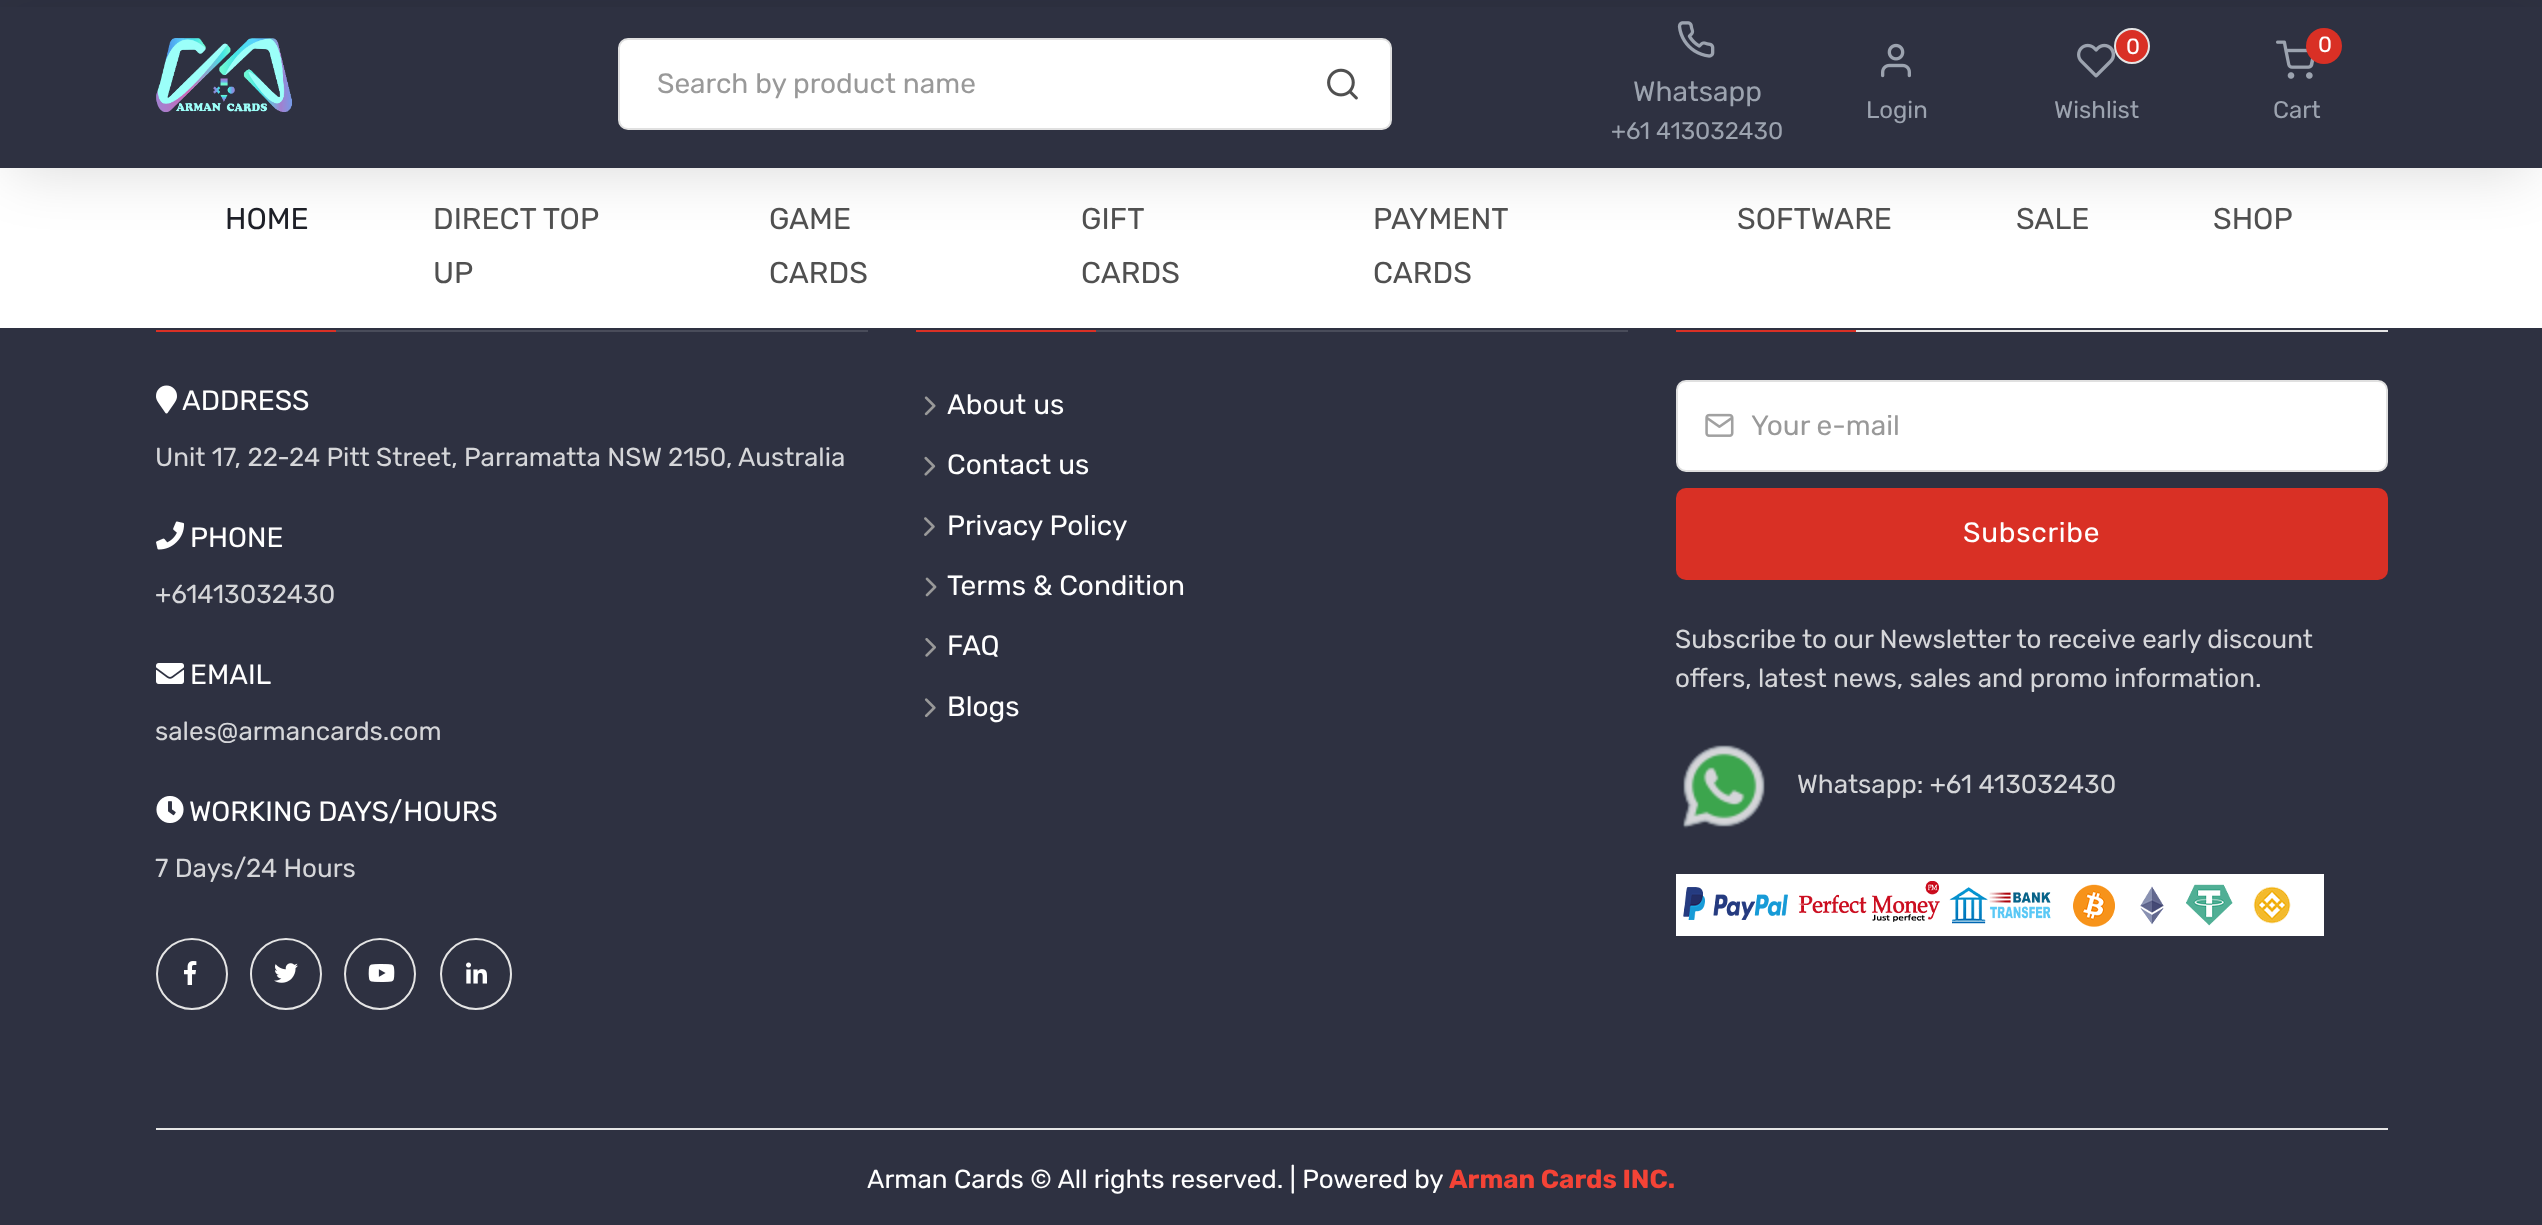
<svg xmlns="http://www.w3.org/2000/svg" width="2542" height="1225">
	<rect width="100%" height="100%" fill="#2E3141" />
	<rect x="0" y="168" width="2542" height="160" fill="#FFFFFF" />
	<rect x="12" y="26" width="2518" height="144" fill="#000000" fill-opacity="0.15" filter="blur(30px)" />
	<rect x="0" y="7" width="2542" height="161" fill="#2E3141" />
	<image x="156" y="38" width="136" height="75" href="assets/img1.png" />
	<rect x="619" y="39" width="772" height="90" rx="9" fill="#FFFFFF" stroke="#E0E0E0" stroke-width="2" />
	<text x="657" y="93" font-family="Rubik" font-size="28" fill="#999999">Search by product name</text>
	<image x="1327" y="68" width="31" height="32" href="assets/img2.png" />
	<image x="1677" y="21" width="38" height="37" href="assets/img3.png" />
	<text x="1633" y="101" font-family="Rubik" font-size="28" fill="#9CA3AF">Whatsapp</text>
	<text x="1611" y="139" font-family="Rubik" font-size="24" fill="#9CA3AF">+61 413032430</text>
	<image x="1881" y="43" width="30" height="35" href="assets/img4.png" />
	<text x="1866" y="118" font-family="Rubik" font-size="24" fill="#9CA3AF">Login</text>
	<image x="2077" y="43" width="39" height="35" href="assets/img5.png" />
	<circle cx="2132" cy="46" r="17" fill="#D93025" stroke="#E5E5E5" stroke-width="2" />
	<text x="2126" y="54" font-family="Rubik" font-size="22" fill="#FFFFFF">0</text>
	<text x="2054" y="118" font-family="Rubik" font-size="24" fill="#9CA3AF">Wishlist</text>
	<image x="2276" y="40" width="38" height="39" href="assets/img6.png" />
	<circle cx="2324" cy="46" r="18" fill="#D93025" />
	<text x="2318" y="52" font-family="Rubik" font-size="22" fill="#FFFFFF">0</text>
	<text x="2273" y="118" font-family="Rubik" font-size="24" fill="#9CA3AF">Cart</text>
	<text x="225" y="229" font-family="Rubik" font-size="30" fill="#1D1F27">HOME</text>
	<g font-family="Rubik" font-size="30" fill="#505050">
		<text x="433" y="229">DIRECT TOP</text>
		<text x="433" y="283">UP</text>
		<text x="769" y="229">GAME</text>
		<text x="769" y="283">CARDS</text>
		<text x="1081" y="229">GIFT</text>
		<text x="1081" y="283">CARDS</text>
		<text x="1373" y="229">PAYMENT</text>
		<text x="1373" y="283">CARDS</text>
		<text x="1737" y="229">SOFTWARE</text>
		<text x="2016" y="229">SALE</text>
		<text x="2213" y="229">SHOP</text>
	</g>
	<rect x="336" y="330" width="532" height="2" fill="#494C5A" />
	<rect x="156" y="330" width="180" height="2" fill="#D93025" />
	<image x="156" y="385" width="21" height="29" href="assets/img7.png" />
	<text x="182" y="410" font-family="Rubik" font-size="28" fill="#FFFFFF">ADDRESS</text>
	<text x="155" y="466" font-family="Rubik" font-size="26" fill="#D5D6D9">Unit 17, 22-24 Pitt Street, Parramatta NSW 2150, Australia</text>
	<image x="156" y="521" width="29" height="29" href="assets/img8.png" />
	<text x="190" y="547" font-family="Rubik" font-size="28" fill="#FFFFFF">PHONE</text>
	<text x="155" y="603" font-family="Rubik" font-size="26" fill="#D5D6D9">+61413032430</text>
	<image x="156" y="663" width="28" height="21" href="assets/img9.png" />
	<text x="190" y="684" font-family="Rubik" font-size="28" fill="#FFFFFF">EMAIL</text>
	<text x="155" y="740" font-family="Rubik" font-size="26" fill="#D5D6D9">sales@armancards.com</text>
	<image x="156" y="796" width="28" height="27" href="assets/img10.png" />
	<text x="189" y="821" font-family="Rubik" font-size="28" fill="#FFFFFF">WORKING DAYS/HOURS</text>
	<text x="155" y="877" font-family="Rubik" font-size="26" fill="#D5D6D9">7 Days/24 Hours</text>
	<circle cx="192" cy="974" r="35" fill="none" stroke="#E5E5E5" stroke-width="2" />
	<image x="184" y="961" width="13" height="24" href="assets/img11.png" />
	<circle cx="286" cy="974" r="35" fill="none" stroke="#E5E5E5" stroke-width="2" />
	<image x="274" y="963" width="24" height="20" href="assets/img12.png" />
	<circle cx="380" cy="974" r="35" fill="none" stroke="#E5E5E5" stroke-width="2" />
	<image x="368" y="964" width="27" height="18" href="assets/img13.png" />
	<circle cx="476" cy="974" r="35" fill="none" stroke="#E5E5E5" stroke-width="2" />
	<image x="466" y="962" width="21" height="22" href="assets/img14.png" />
	<rect x="1096" y="330" width="532" height="2" fill="#494C5A" />
	<rect x="916" y="330" width="180" height="2" fill="#D93025" />
	<image x="924" y="396" width="12" height="20" href="assets/img15.png" />
	<text x="947" y="414" font-family="Rubik" font-size="28" fill="#FFFFFF">About us</text>
	<image x="924" y="456" width="12" height="20" href="assets/img16.png" />
	<text x="947" y="474" font-family="Rubik" font-size="28" fill="#FFFFFF">Contact us</text>
	<image x="924" y="517" width="11" height="19" href="assets/img17.png" />
	<text x="947" y="535" font-family="Rubik" font-size="28" fill="#FFFFFF">Privacy Policy</text>
	<image x="925" y="577" width="12" height="20" href="assets/img18.png" />
	<text x="947" y="595" font-family="Rubik" font-size="28" fill="#FFFFFF">Terms &amp; Condition</text>
	<image x="925" y="638" width="11" height="19" href="assets/img19.png" />
	<text x="947" y="655" font-family="Rubik" font-size="28" fill="#FFFFFF">FAQ</text>
	<image x="924" y="698" width="12" height="20" href="assets/img20.png" />
	<text x="947" y="716" font-family="Rubik" font-size="28" fill="#FFFFFF">Blogs</text>
	<rect x="1856" y="330" width="532" height="2" fill="#E5E5E5" />
	<rect x="1676" y="330" width="180" height="2" fill="#D93025" />
	<rect x="1677" y="381" width="710" height="90" rx="9" fill="#FFFFFF" stroke="#E0E0E0" stroke-width="2" />
	<image x="1705" y="413" width="29" height="24" href="assets/img21.png" />
	<text x="1751" y="435" font-family="Rubik" font-size="28" fill="#999999">Your e-mail</text>
	<rect x="1676" y="488" width="712" height="92" rx="10" fill="#D93025" />
	<text x="1963" y="542" font-family="Rubik" font-size="28" letter-spacing="0.75" fill="#FFFFFF">Subscribe</text>
	<g font-family="Rubik" font-size="26" fill="#D5D6D9">
		<text x="1675" y="648">Subscribe to our Newsletter to receive early discount</text>
		<text x="1675" y="687">offers, latest news, sales and promo information.</text>
	</g>
	<image x="1682" y="745" width="83" height="84" href="assets/img22.png" />
	<text x="1797" y="793" font-family="Rubik" font-size="26" fill="#D5D6D9">Whatsapp: +61 413032430</text>
	<image x="1676" y="874" width="648" height="62" href="assets/img23.png" />
	<rect x="156" y="1128" width="2232" height="2" fill="#E5E5E5" />
	<text x="867" y="1188" font-family="Rubik" font-size="26" fill="#FFFFFF">Arman Cards © All rights reserved. | Powered by</text>
	<text x="1449" y="1188" font-family="Rubik" font-size="26" font-weight="700" fill="#F44336">Arman Cards INC.</text>
</svg>
